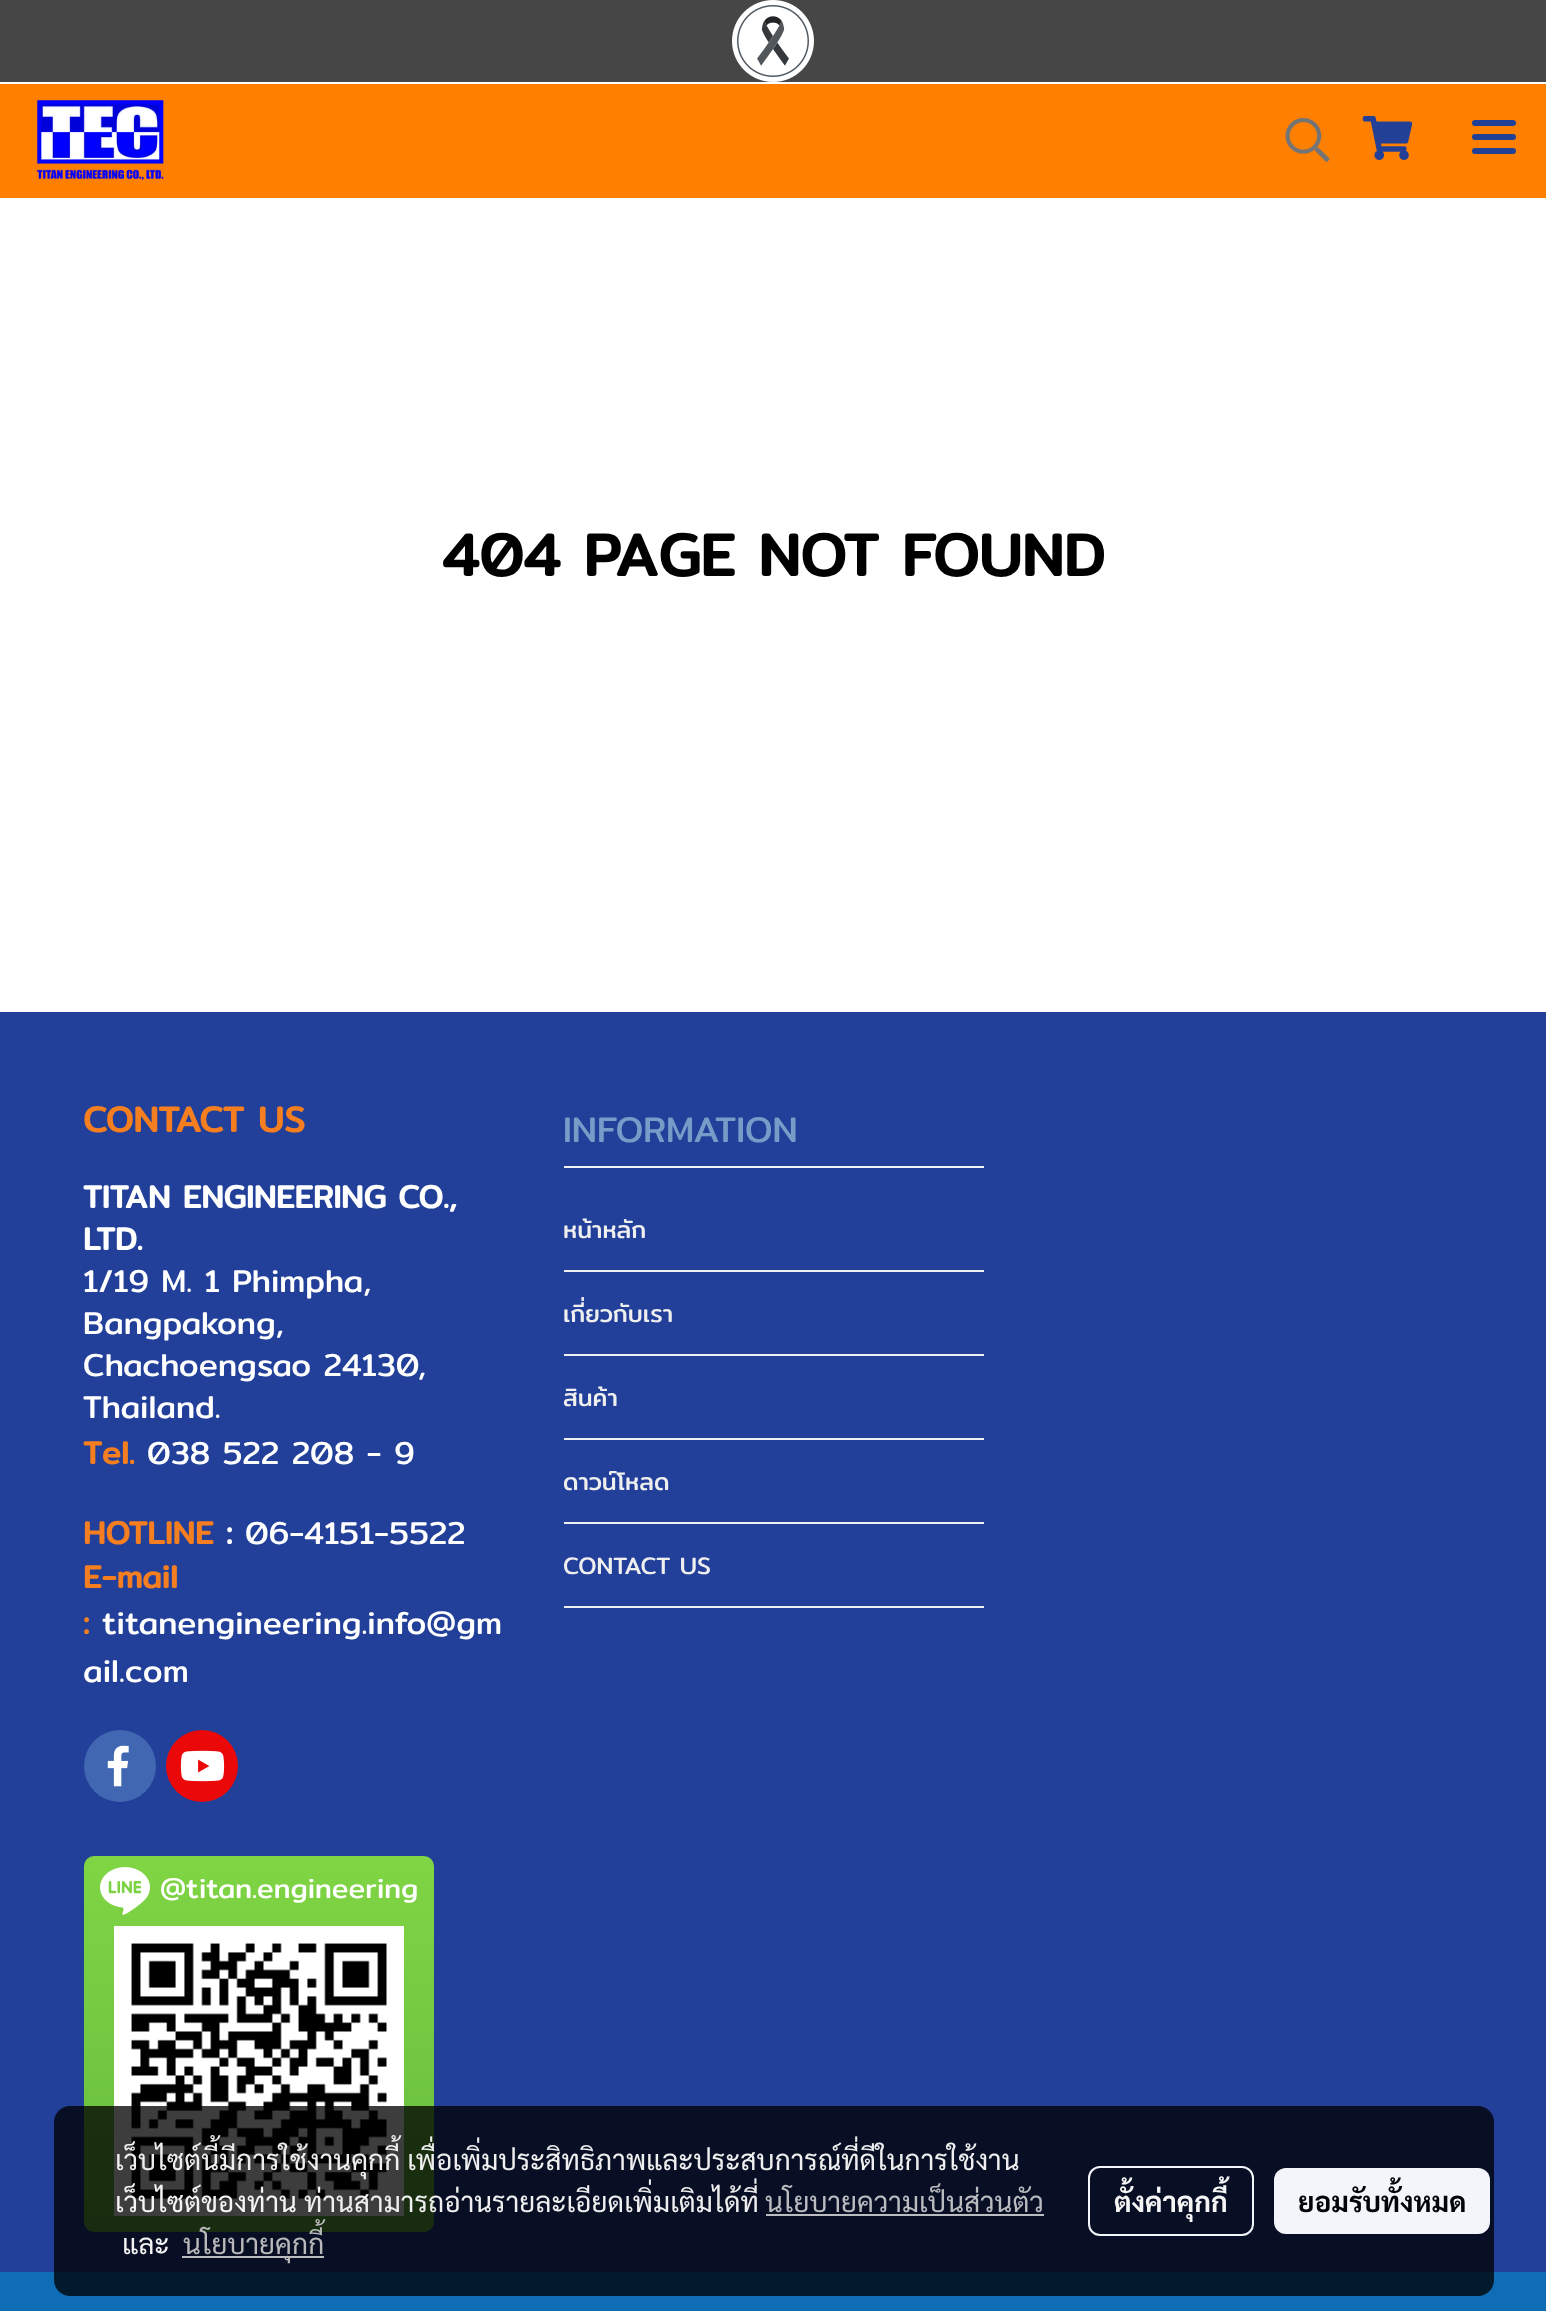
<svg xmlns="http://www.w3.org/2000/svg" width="1546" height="2311">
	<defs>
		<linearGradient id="g1" gradientUnits="userSpaceOnUse" x1="259" y1="1856" x2="259" y2="2232"><stop offset="0" stop-color="#80D544" /><stop offset="1" stop-color="#65BC3E" /></linearGradient>
	</defs>
	<rect width="100%" height="100%" fill="#FFFFFF" />
	<rect x="0" y="0" width="1546" height="82" fill="#464646" />
	<image x="732" y="0" width="82" height="82" href="assets/img1.png" />
	<rect x="0" y="84" width="1546" height="114" fill="#FF7F00" />
	<image x="36" y="100" width="128" height="80" href="assets/img2.png" />
	<image x="1285" y="118" width="45" height="44" href="assets/img3.png" />
	<image x="1362" y="116" width="51" height="44" href="assets/img4.png" />
	<rect x="1472" y="134" width="44" height="6" rx="3" fill="#224095" />
	<rect x="1472" y="120" width="44" height="6" rx="3" fill="#224095" />
	<rect x="1472" y="148" width="44" height="6" rx="3" fill="#224095" />
	<text x="442" y="576" font-family="Mitr" font-size="60" font-weight="700" fill="#000000">404 PAGE NOT FOUND</text>
	<rect x="0" y="1012" width="1546" height="1260" fill="#224099" />
	<text x="83" y="1132" font-family="Mitr" font-size="36" font-weight="700" fill="#F57E20">CONTACT US</text>
	<g font-family="Mitr" font-size="32" font-weight="700" fill="#FFFFFF">
		<text x="83" y="1208">TITAN ENGINEERING CO.,</text>
		<text x="83" y="1250">LTD.</text>
	</g>
	<g font-family="Mitr" font-size="32" fill="#FFFFFF">
		<text x="83" y="1292">1/19 M. 1 Phimpha,</text>
		<text x="83" y="1334">Bangpakong,</text>
		<text x="83" y="1376">Ch</text>
		<text x="123" y="1376">achoengsao 24130,</text>
		<text x="83" y="1418">Thailand.</text>
	</g>
	<text x="83" y="1464" font-family="Mitr" font-size="32" font-weight="700" fill="#F57E20">Tel.</text>
	<text x="147" y="1464" font-family="Mitr" font-size="32" fill="#FFFFFF">038 522 208 - 9</text>
	<text x="83" y="1544" font-family="Mitr" font-size="32" font-weight="700" fill="#F57E20">HOTLINE</text>
	<text x="226" y="1544" font-family="Mitr" font-size="32" font-weight="700" fill="#FFFFFF">:</text>
	<text x="245" y="1544" font-family="Mitr" font-size="32" fill="#FFFFFF">06-4151-5522</text>
	<g font-family="Mitr" font-size="32" font-weight="700" fill="#F57E20">
		<text x="83" y="1588">E-mail</text>
		<text x="83" y="1634">:</text>
	</g>
	<g font-family="Mitr" font-size="32" fill="#FFFFFF">
		<text x="102" y="1634">titanengineering.info@gm</text>
		<text x="83" y="1682">ail.com</text>
	</g>
	<circle cx="120" cy="1766" r="36" fill="#4267B2" />
	<image x="107" y="1745" width="22" height="42" href="assets/img5.png" />
	<circle cx="202" cy="1766" r="36" fill="#EB0808" />
	<image x="180" y="1750" width="45" height="32" href="assets/img6.png" />
	<rect x="84" y="1856" width="350" height="376" rx="10" fill="url(#g1)" />
	<image x="100" y="1867" width="50" height="48" href="assets/img7.png" />
	<text x="160" y="1898" font-family="Mitr" font-size="28" fill="#FFFFFF">@titan.engineering</text>
	<image x="114" y="1926" width="290" height="290" href="assets/img8.png" />
	<rect x="564" y="1166" width="420" height="2" fill="#F3F3F3" />
	<text x="563" y="1142" font-family="Mitr" font-size="36" fill="#769DC8">INFORMATION</text>
	<rect x="564" y="1270" width="420" height="2" fill="#EFEFEF" />
	<text x="563" y="1238" font-family="Mitr" font-size="24" fill="#EFEFEF">หน้าหลัก</text>
	<rect x="564" y="1354" width="420" height="2" fill="#EFEFEF" />
	<text x="563" y="1322" font-family="Mitr" font-size="24" fill="#EFEFEF">เกี่ยวกับเรา</text>
	<rect x="564" y="1438" width="420" height="2" fill="#EFEFEF" />
	<text x="563" y="1406" font-family="Mitr" font-size="24" fill="#EFEFEF">สินค้า</text>
	<rect x="564" y="1522" width="420" height="2" fill="#EFEFEF" />
	<text x="563" y="1490" font-family="Mitr" font-size="24" fill="#EFEFEF">ดาวน์โหลด</text>
	<rect x="564" y="1606" width="420" height="2" fill="#EFEFEF" />
	<text x="563" y="1574" font-family="Mitr" font-size="24" fill="#EFEFEF">CONTACT US</text>
	<rect x="0" y="2272" width="1546" height="39" fill="#0F6DB6" />
	<rect x="54" y="2106" width="1440" height="190" rx="16" fill="#000000" fill-opacity="0.76" />
	<text x="115" y="2170" font-family="Sarabun" font-size="28" fill="#EFEFEF">เว็บไซต์นี้มีการใช้งานคุกกี้ เพื่อเพิ่มประสิทธิภาพและประสบการณ์ที่ดีในการใช้งาน</text>
	<text x="115" y="2212" font-family="Sarabun" font-size="28" fill="#F5F5F5">เว็บไซต์ของท่าน</text>
	<text x="304" y="2212" font-family="Sarabun" font-size="28" fill="#EFEFEF">ท่านสามารถอ่านรายละเอียดเพิ่มเติมได้ที่</text>
	<text x="765" y="2212" font-family="Sarabun" font-size="28" fill="#BABCC0">นโยบายความเป็นส่วนตัว</text>
	<rect x="766" y="2214" width="278" height="2" fill="#BABCC0" />
	<text x="122" y="2254" font-family="Sarabun" font-size="28" fill="#F5F5F5">และ</text>
	<rect x="182" y="2256" width="142" height="2" fill="#BABCC0" />
	<text x="183" y="2254" font-family="Sarabun" font-size="28" fill="#B9B9BA">นโยบายคุกกี้</text>
	<rect x="1089" y="2167" width="164" height="68" rx="11" fill="none" stroke="#F4F5FA" stroke-width="2" />
	<text x="1114" y="2212" font-family="Sarabun" font-size="28" font-weight="700" fill="#F5F5F5">ตั้งค่าคุกกี้</text>
	<rect x="1274" y="2168" width="216" height="66" rx="12" fill="#F4F5FA" />
	<text x="1298" y="2212" font-family="Sarabun" font-size="28" font-weight="700" fill="#020308">ยอมรับทั้งหมด</text>
</svg>
